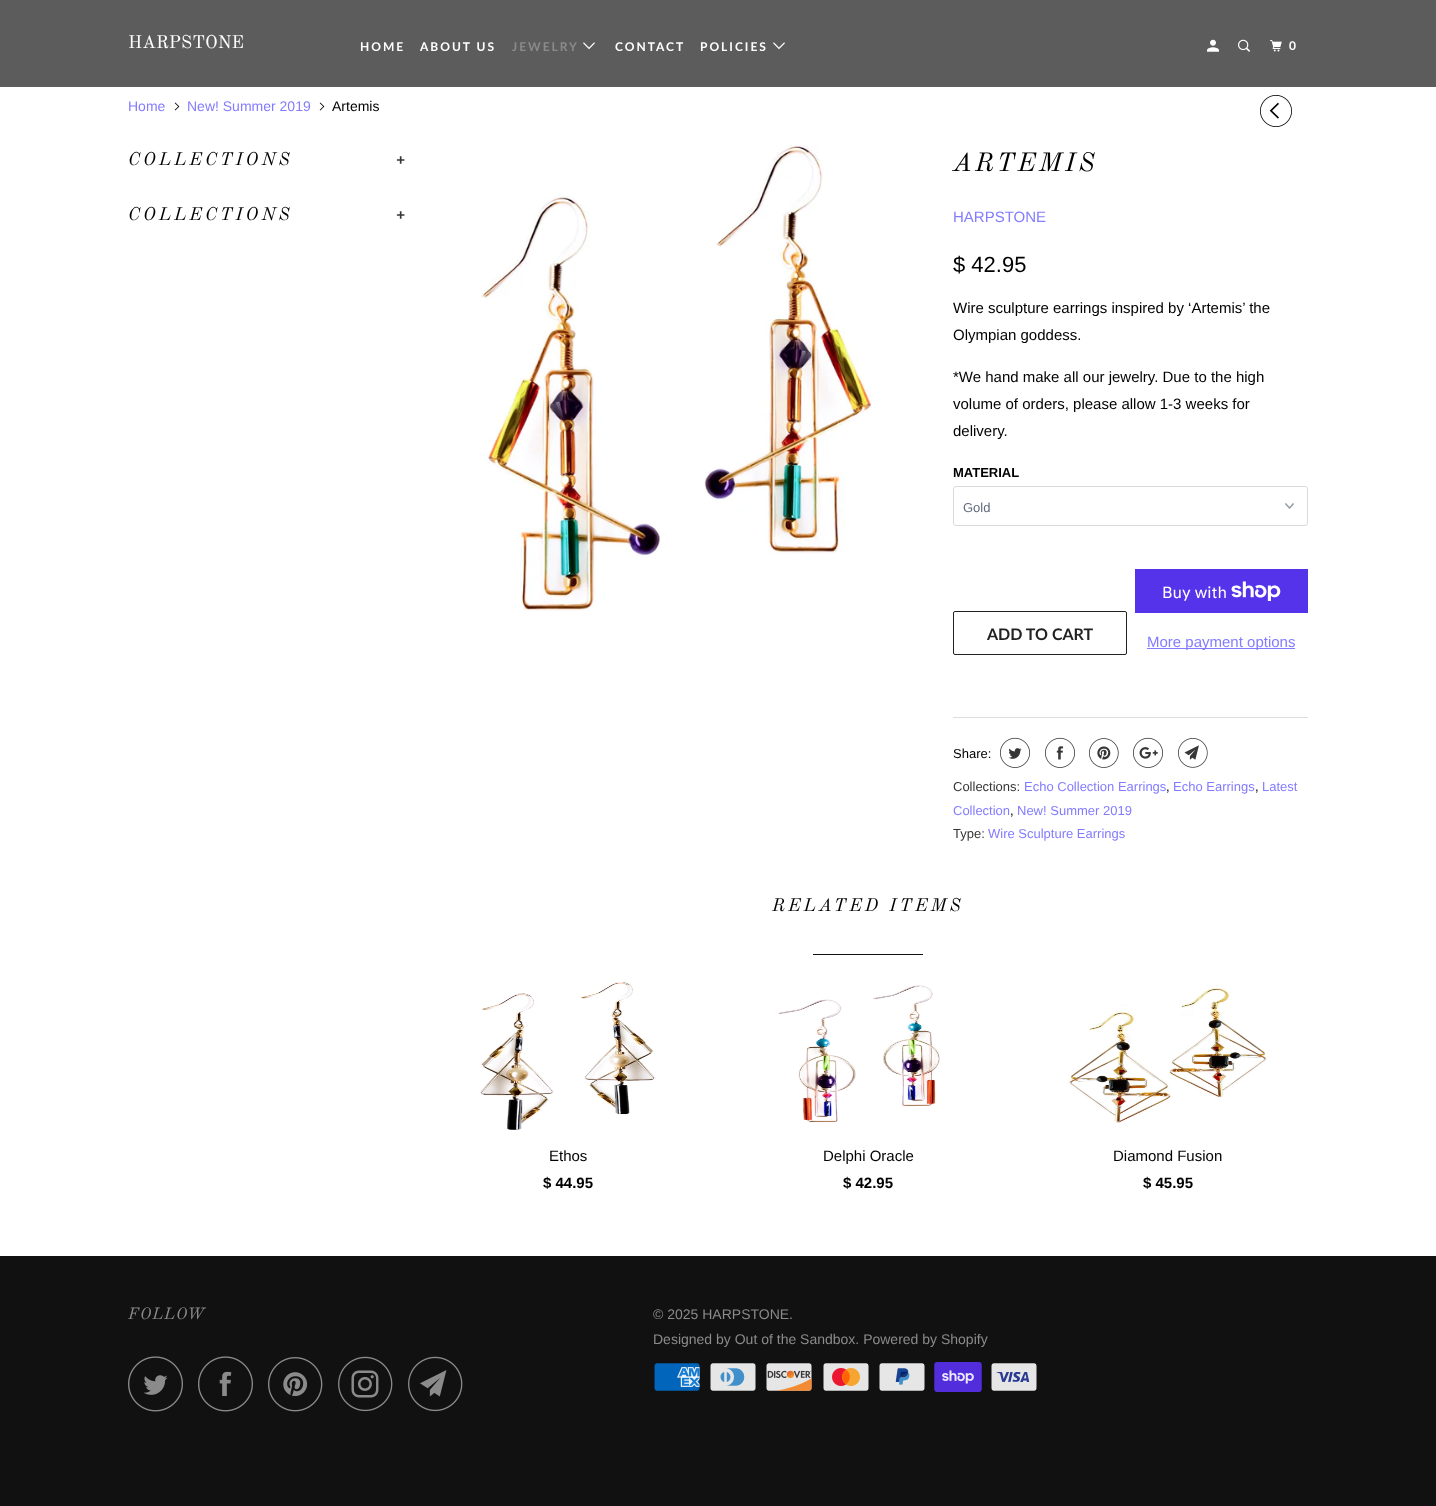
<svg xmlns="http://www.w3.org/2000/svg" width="1436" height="1506">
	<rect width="100%" height="100%" fill="#111111" />
	<rect x="0" y="87" width="1436" height="1169" fill="#FFFFFF" />
	<rect x="0" y="0" width="1436" height="87" fill="#5C5C5C" />
	<text x="128" y="48" font-family="Old Standard TT" font-size="18" fill="#FFFFFF">HARPSTONE</text>
	<g font-family="Lato" font-size="12" font-weight="700" letter-spacing="2" fill="#FFFFFF">
		<text x="360" y="51">HOME</text>
		<text x="420" y="51">ABOUT US</text>
	</g>
	<text x="512" y="51" font-family="Lato" font-size="12" font-weight="700" letter-spacing="2" fill="#8B8B8B">JEWELRY</text>
	<image x="583" y="42" width="12" height="8" href="assets/img1.png" />
	<g font-family="Lato" font-size="12" font-weight="700" letter-spacing="2" fill="#FFFFFF">
		<text x="615" y="51">CONTACT</text>
		<text x="700" y="51">POLICIES</text>
	</g>
	<image x="773" y="42" width="12" height="8" href="assets/img1.png" />
	<image x="1207" y="39" width="12" height="13" href="assets/img2.png" />
	<image x="1238" y="39" width="12" height="13" href="assets/img3.png" />
	<image x="1270" y="40" width="12" height="12" href="assets/img4.png" />
	<text x="1289" y="50" font-family="Lato" font-size="12" font-weight="700" letter-spacing="2" fill="#FFFFFF">0</text>
	<text x="128" y="111" font-family="Liberation Sans" font-size="14" fill="#837CFF">Home</text>
	<image x="174" y="102" width="6" height="9" href="assets/img5.png" />
	<text x="187" y="111" font-family="Liberation Sans" font-size="14" fill="#837CFF">New! Summer 2019</text>
	<image x="319" y="102" width="6" height="9" href="assets/img5.png" />
	<text x="332" y="111" font-family="Liberation Sans" font-size="14" fill="#000000">Artemis</text>
	<image x="1260" y="95" width="32" height="32" href="assets/img6.png" />
	<text x="128" y="165" font-family="Old Standard TT" font-size="18" font-style="italic" letter-spacing="3" fill="#000000">COLLECTIONS</text>
	<text x="396" y="165" font-family="Liberation Sans" font-size="15" font-weight="700" font-style="italic" letter-spacing="3" fill="#363636">+</text>
	<text x="128" y="220" font-family="Old Standard TT" font-size="18" font-style="italic" letter-spacing="3" fill="#000000">COLLECTIONS</text>
	<text x="396" y="220" font-family="Liberation Sans" font-size="15" font-weight="700" font-style="italic" letter-spacing="3" fill="#363636">+</text>
	<image x="481" y="145" width="391" height="466" href="assets/img7.png" />
	<text x="953" y="171" font-family="Old Standard TT" font-size="26" font-style="italic" letter-spacing="3" fill="#000000">ARTEMIS</text>
	<text x="953" y="222" font-family="Liberation Sans" font-size="15" fill="#837CFF">HARPSTONE</text>
	<text x="953" y="272" font-family="Liberation Sans" font-size="22" fill="#000000">$ 42.95</text>
	<g font-family="Liberation Sans" font-size="15" fill="#000000">
		<text x="953" y="313">Wire sculpture earrings inspired by ‘Artemis’ the</text>
		<text x="953" y="340">Olympian goddess.</text>
		<text x="953" y="382">*We hand make all our jewelry. Due to the high</text>
		<text x="953" y="409">volume of orders, please allow 1-3 weeks for</text>
		<text x="953" y="436">delivery.</text>
	</g>
	<text x="953" y="477" font-family="Liberation Sans" font-size="13" font-weight="700" fill="#000000">MATERIAL</text>
	<image x="1285" y="503" width="9" height="6" href="assets/img8.png" />
	<rect x="953.5" y="486.5" width="354" height="39" rx="2.5" fill="none" stroke="#D9DBDC" />
	<text x="963" y="512" font-family="Liberation Sans" font-size="13" fill="#5F6A7D">Gold</text>
	<rect x="953.5" y="611.5" width="173" height="43" rx="1.5" fill="none" stroke="#222222" />
	<text x="987" y="640" font-family="Lato" font-size="16" font-weight="700" fill="#222222">ADD TO CART</text>
	<rect x="1135" y="569" width="173" height="44" fill="#5433EB" />
	<text x="1162" y="598" font-family="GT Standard" font-size="16" fill="#FFFFFF">Buy with</text>
	<image x="1231" y="581" width="50" height="20" href="assets/img9.png" />
	<rect x="1147" y="648" width="148" height="1" fill="#837CFF" />
	<text x="1147" y="647" font-family="Liberation Sans" font-size="15" fill="#837CFF">More payment options</text>
	<rect x="953" y="717" width="355" height="1" fill="#DDDDDD" />
	<text x="953" y="758" font-family="Liberation Sans" font-size="13" fill="#000000">Share:</text>
	<image x="1000" y="737" width="30" height="31" href="assets/img10.png" />
	<image x="1045" y="737" width="30" height="31" href="assets/img11.png" />
	<image x="1089" y="738" width="30" height="30" href="assets/img12.png" />
	<image x="1133" y="737" width="30" height="31" href="assets/img13.png" />
	<image x="1178" y="738" width="30" height="30" href="assets/img14.png" />
	<text x="953" y="791" font-family="Liberation Sans" font-size="13" fill="#363636">Collections:</text>
	<text x="1024" y="791" font-family="Liberation Sans" font-size="13" fill="#837CFF">Echo Collection Earrings</text>
	<text x="1166" y="791" font-family="Liberation Sans" font-size="13" fill="#000000">,</text>
	<text x="1173" y="791" font-family="Liberation Sans" font-size="13" fill="#837CFF">Echo Earrings</text>
	<text x="1255" y="791" font-family="Liberation Sans" font-size="13" fill="#000000">,</text>
	<g font-family="Liberation Sans" font-size="13" fill="#837CFF">
		<text x="1262" y="791">Latest</text>
		<text x="953" y="815">Collection</text>
	</g>
	<text x="1010" y="815" font-family="Liberation Sans" font-size="13" fill="#000000">,</text>
	<text x="1017" y="815" font-family="Liberation Sans" font-size="13" fill="#837CFF">New! Summer 2019</text>
	<text x="953" y="838" font-family="Liberation Sans" font-size="13" fill="#363636">Type:</text>
	<text x="988" y="838" font-family="Liberation Sans" font-size="13" fill="#837CFF">Wire Sculpture Earrings</text>
	<text x="772" y="911" font-family="Old Standard TT" font-size="18" font-style="italic" letter-spacing="3" fill="#000000">RELATED ITEMS</text>
	<rect x="813" y="954" width="110" height="1" fill="#111111" />
	<image x="479" y="982" width="177" height="148" href="assets/img15.png" />
	<text x="549" y="1161" font-family="Liberation Sans" font-size="15" fill="#000000">Ethos</text>
	<text x="543" y="1188" font-family="Liberation Sans" font-size="15" font-weight="700" fill="#000000">$ 44.95</text>
	<image x="778" y="985" width="162" height="138" href="assets/img16.png" />
	<text x="823" y="1161" font-family="Liberation Sans" font-size="15" fill="#000000">Delphi Oracle</text>
	<text x="843" y="1188" font-family="Liberation Sans" font-size="15" font-weight="700" fill="#000000">$ 42.95</text>
	<image x="1068" y="988" width="199" height="135" href="assets/img17.png" />
	<text x="1113" y="1161" font-family="Liberation Sans" font-size="15" fill="#000000">Diamond Fusion</text>
	<text x="1143" y="1188" font-family="Liberation Sans" font-size="15" font-weight="700" fill="#000000">$ 45.95</text>
	<text x="128" y="1319" font-family="Old Standard TT" font-size="16" font-style="italic" letter-spacing="1" fill="#8B8B8B">FOLLOW</text>
	<image x="128" y="1356" width="55" height="56" href="assets/img18.png" />
	<image x="198" y="1356" width="55" height="56" href="assets/img19.png" />
	<image x="268" y="1357" width="55" height="55" href="assets/img20.png" />
	<image x="338" y="1356" width="55" height="56" href="assets/img21.png" />
	<image x="408" y="1356" width="55" height="56" href="assets/img22.png" />
	<g font-family="Liberation Sans" font-size="14" fill="#8B8B8B">
		<text x="653" y="1319">© 2025 HARPSTONE.</text>
		<text x="653" y="1344">Designed by Out of the Sandbox. Powered by Shopify</text>
	</g>
	<image x="654" y="1363" width="46" height="28" href="assets/img23.png" />
	<image x="710" y="1363" width="46" height="28" href="assets/img24.png" />
	<image x="766" y="1363" width="46" height="28" href="assets/img25.png" />
	<image x="823" y="1363" width="46" height="28" href="assets/img26.png" />
	<image x="879" y="1363" width="46" height="28" href="assets/img27.png" />
	<image x="934" y="1362" width="48" height="30" href="assets/img28.png" />
	<image x="991" y="1363" width="46" height="28" href="assets/img29.png" />
</svg>
